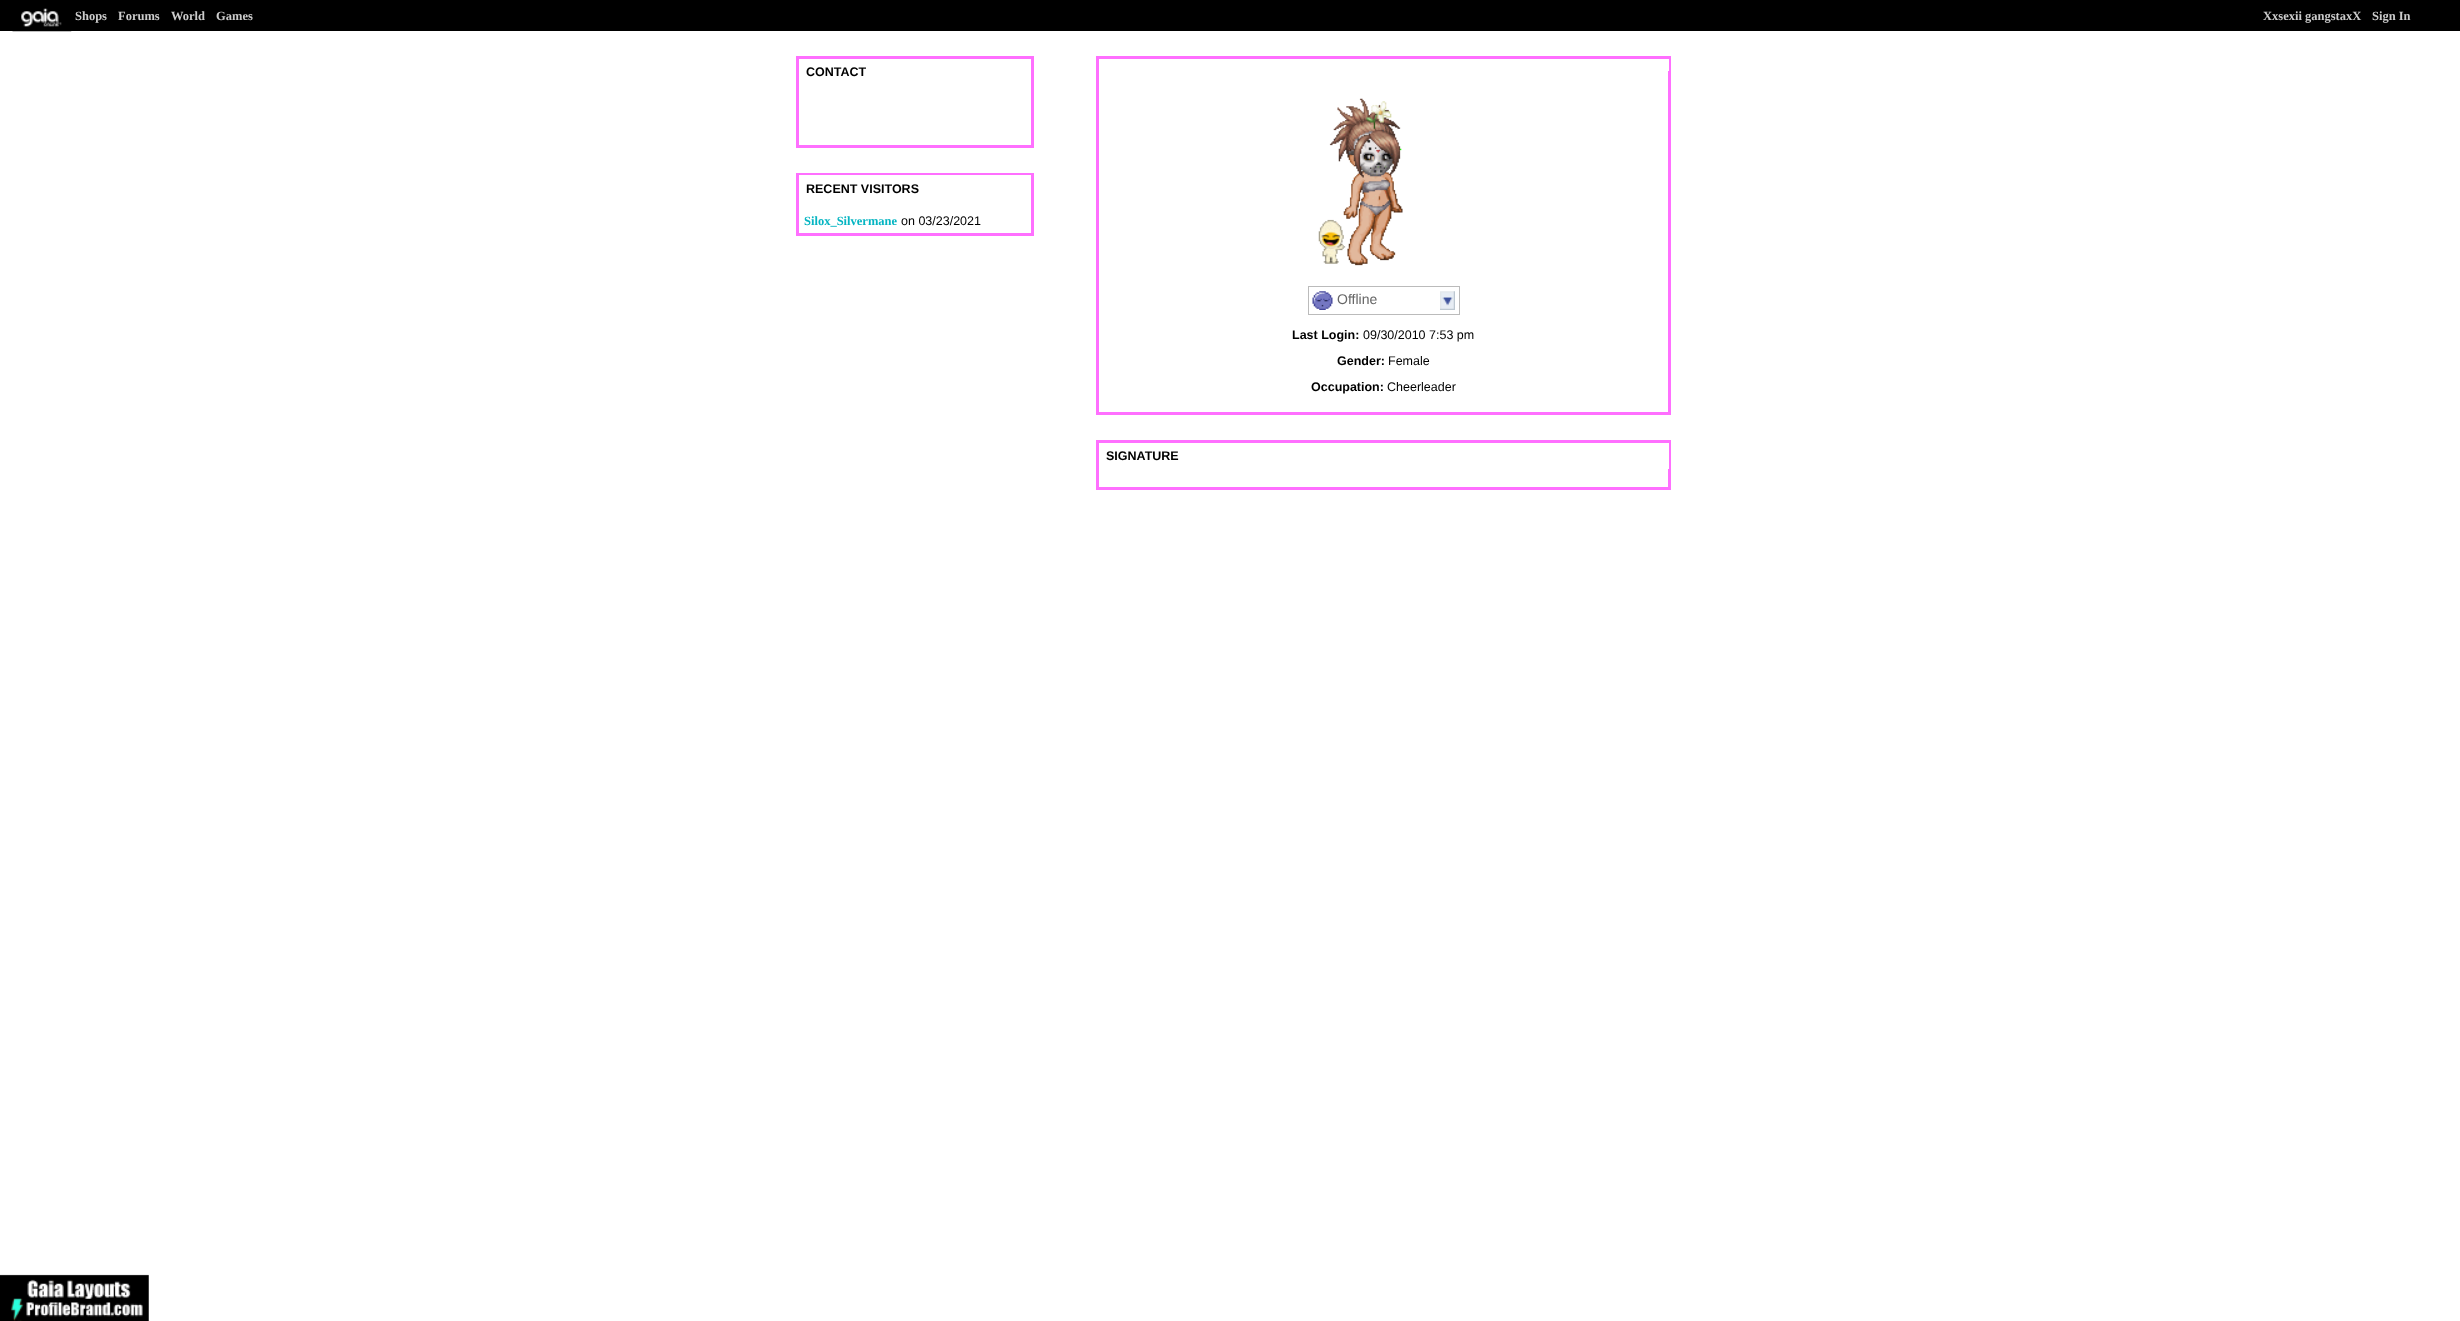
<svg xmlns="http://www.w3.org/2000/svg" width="2460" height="1321">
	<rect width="100%" height="100%" fill="#FFFFFF" />
	<image x="0" y="1274" width="149" height="47" href="assets/img1.png" />
	<rect x="0" y="0" width="2460" height="31" fill="#000000" />
	<image x="12" y="8" width="60" height="24" href="assets/img2.png" />
	<g font-family="Liberation Serif" font-size="12.5" font-weight="700" fill="#CCCCCC">
		<text x="75" y="20">Shops</text>
		<text x="118" y="20">Forums</text>
		<text x="171" y="20">World</text>
		<text x="216" y="20">Games</text>
		<text x="2263" y="20">Xxsexii gangstaxX</text>
		<text x="2372" y="20">Sign In</text>
	</g>
	<rect x="797.5" y="57.5" width="235" height="89" fill="none" stroke="#FF6FFF" stroke-width="3" />
	<text x="806" y="76" font-family="Liberation Sans" font-size="12.5" font-weight="700" fill="#000000">CONTACT</text>
	<rect x="797.5" y="174.5" width="235" height="60" fill="none" stroke="#FF6FFF" stroke-width="3" />
	<rect x="799" y="175" width="232" height="1" fill="#FFFFFF" />
	<text x="806" y="193" font-family="Liberation Sans" font-size="12.5" font-weight="700" fill="#000000">RECENT VISITORS</text>
	<text x="804" y="225" font-family="Liberation Serif" font-size="12.5" font-weight="700" fill="#05B5C2">Silox_Silvermane</text>
	<text x="901" y="225" font-family="Liberation Sans" font-size="12.5" fill="#000000">on 03/23/2021</text>
	<rect x="1097.5" y="57.5" width="572" height="356" fill="none" stroke="#FF6FFF" stroke-width="3" />
	<rect x="1668" y="59" width="1" height="12" fill="#FFFFFF" />
	<image x="1318" y="98" width="85" height="168" href="assets/img3.png" />
	<rect x="1308.5" y="286.5" width="151" height="28" fill="none" stroke="#BBBBBB" />
	<image x="1440" y="291" width="15" height="19" href="assets/img4.png" />
	<image x="1312" y="291" width="21" height="19" href="assets/img5.png" />
	<text x="1337" y="304" font-family="Liberation Sans" font-size="14" fill="#666666">Offline</text>
	<text x="1292" y="339" font-family="Liberation Sans" font-size="12.5" font-weight="700" fill="#000000">Last Login:</text>
	<text x="1363" y="339" font-family="Liberation Sans" font-size="12.5" fill="#000000">09/30/2010 7:53 pm</text>
	<text x="1337" y="365" font-family="Liberation Sans" font-size="12.5" font-weight="700" fill="#000000">Gender:</text>
	<text x="1388" y="365" font-family="Liberation Sans" font-size="12.5" fill="#000000">Female</text>
	<text x="1311" y="391" font-family="Liberation Sans" font-size="12.5" font-weight="700" fill="#000000">Occupation:</text>
	<text x="1387" y="391" font-family="Liberation Sans" font-size="12.5" fill="#000000">Cheerleader</text>
	<rect x="1097.5" y="441.5" width="572" height="47" fill="none" stroke="#FF6FFF" stroke-width="3" />
	<rect x="1668" y="443" width="1" height="26" fill="#FFFFFF" />
	<text x="1106" y="460" font-family="Liberation Sans" font-size="12.5" font-weight="700" fill="#000000">SIGNATURE</text>
</svg>
